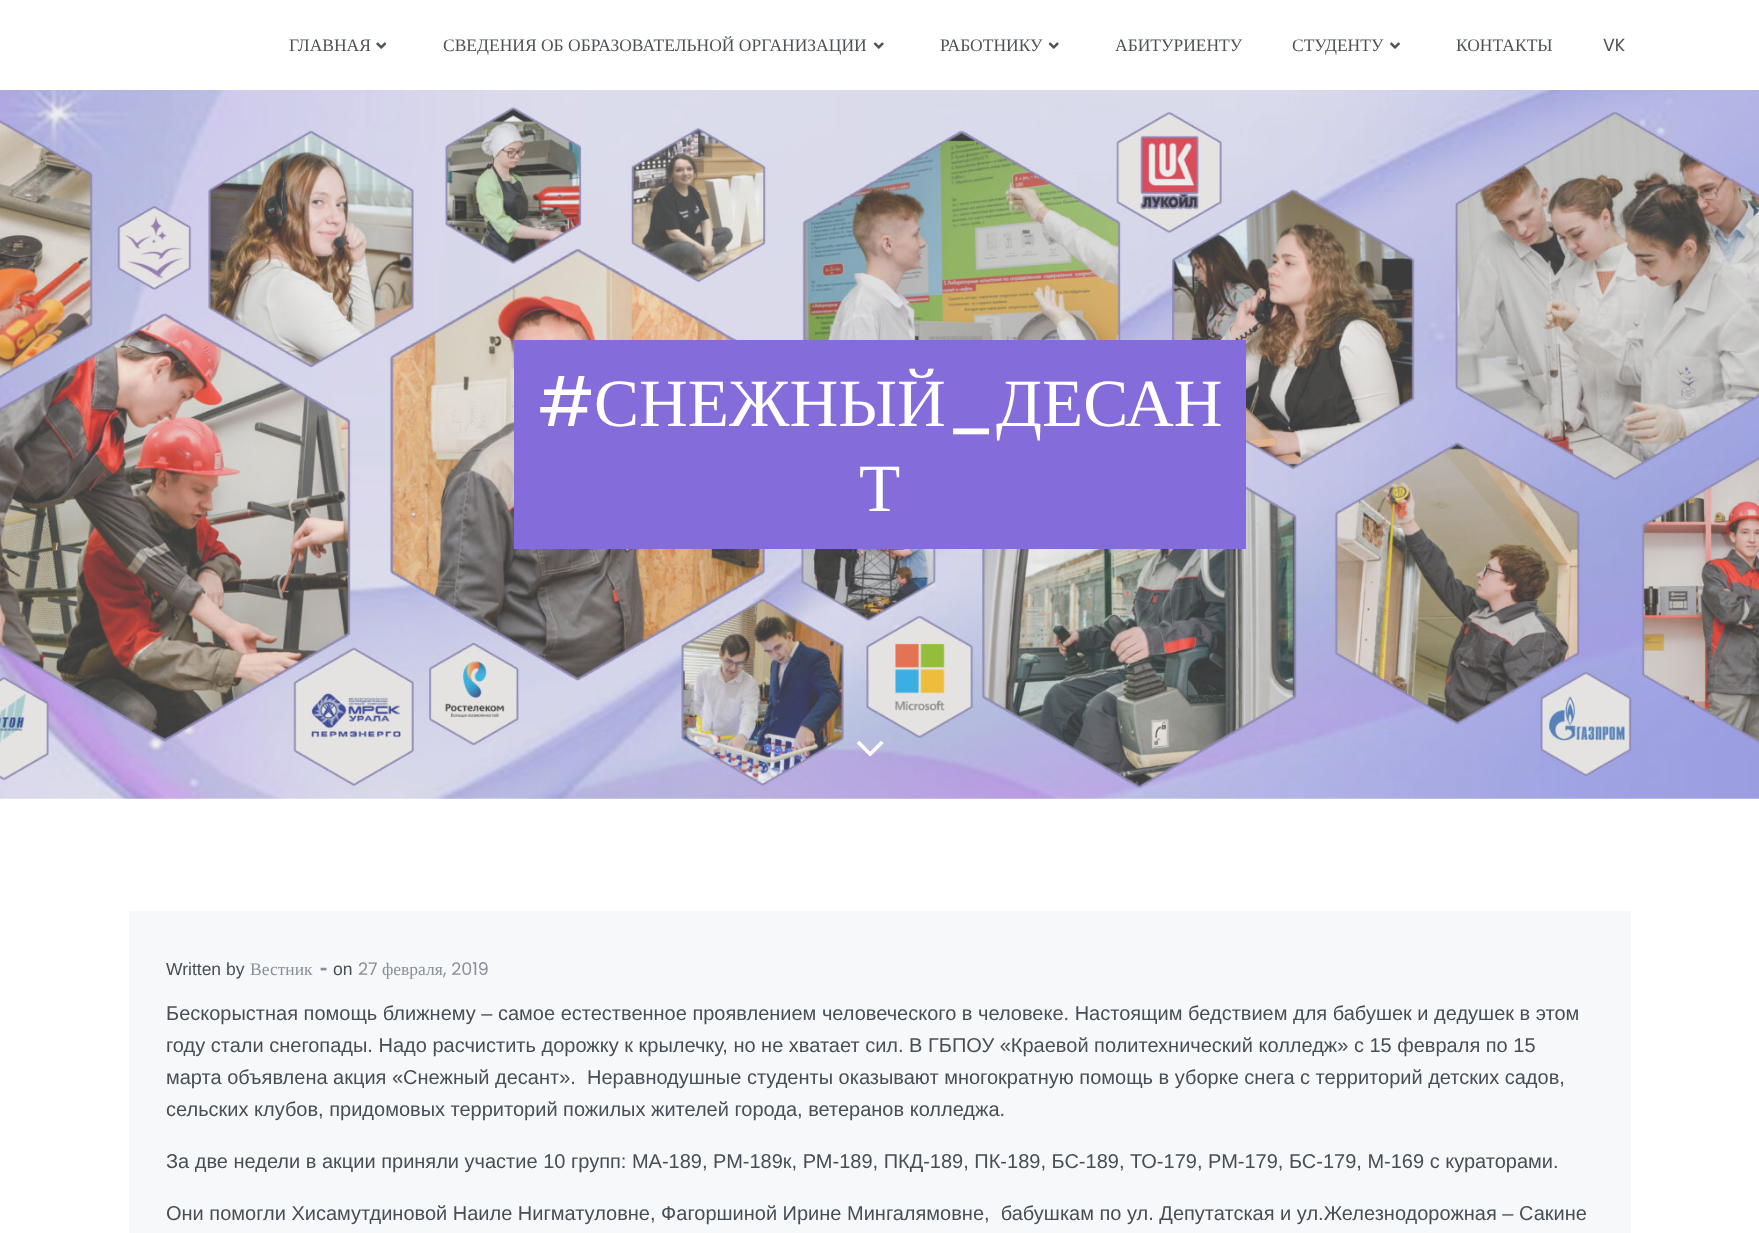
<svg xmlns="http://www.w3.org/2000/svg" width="1759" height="1233">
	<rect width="100%" height="100%" fill="#FFFFFF" />
	<text x="289" y="51" font-family="Liberation Serif" font-size="17.5" fill="#505355">ГЛАВНАЯ</text>
	<image x="376" y="42" width="11" height="7" href="assets/img1.png" />
	<text x="443" y="51" font-family="Liberation Serif" font-size="17.5" fill="#505355">СВЕДЕНИЯ ОБ ОБРАЗОВАТЕЛЬНОЙ ОРГАНИЗАЦИИ</text>
	<image x="873" y="42" width="11" height="7" href="assets/img2.png" />
	<text x="940" y="51" font-family="Liberation Serif" font-size="17.5" fill="#505355">РАБОТНИКУ</text>
	<image x="1048" y="42" width="11" height="7" href="assets/img2.png" />
	<g font-family="Liberation Serif" font-size="17.5" fill="#505355">
		<text x="1115" y="51">АБИТУРИЕНТУ</text>
		<text x="1292" y="51">СТУДЕНТУ</text>
	</g>
	<image x="1390" y="42" width="10" height="7" href="assets/img3.png" />
	<text x="1456" y="51" font-family="Liberation Serif" font-size="17.5" fill="#505355">КОНТАКТЫ</text>
	<text x="1603" y="51" font-family="Poppins" font-size="17.5" fill="#505355">VK</text>
	<image x="0" y="90" width="1759" height="709" href="assets/img4.png" />
	<rect x="514" y="340" width="732" height="209" fill="#856CDB" />
	<text x="538" y="426" font-family="Poppins" font-size="67.5" fill="#FFFFFF">#</text>
	<text x="594" y="426" font-family="Liberation Serif" font-size="67.5" fill="#FFFFFF">СНЕЖНЫЙ</text>
	<text x="946" y="426" font-family="Poppins" font-size="67.5" fill="#FFFFFF">_</text>
	<g font-family="Liberation Serif" font-size="67.5" fill="#FFFFFF">
		<text x="996" y="426">ДЕСАН</text>
		<text x="859" y="511">Т</text>
	</g>
	<image x="857" y="741" width="27" height="16" href="assets/img5.png" />
	<rect x="129" y="911" width="1502" height="322" fill="#F7F8F9" />
	<text x="166" y="975" font-family="Liberation Sans" font-size="17.5" fill="#474E55">Written by</text>
	<text x="250" y="975" font-family="Liberation Serif" font-size="17.5" fill="#888F97">Вестник</text>
	<text x="320" y="975" font-family="Open Sans" font-size="22" font-weight="700" letter-spacing="2" fill="#888F97">-</text>
	<text x="333" y="975" font-family="Liberation Sans" font-size="17.5" fill="#474E55">on</text>
	<text x="358" y="975" font-family="Poppins" font-size="17.5" fill="#888F97">27</text>
	<text x="382" y="975" font-family="Liberation Serif" font-size="17.5" fill="#888F97">февраля</text>
	<text x="443" y="975" font-family="Poppins" font-size="17.5" fill="#888F97">, 2019</text>
	<g font-family="Liberation Sans" font-size="20" fill="#474E55">
		<text x="166" y="1020">Бескорыстная помощь ближнему – самое естественное проявлением человеческого в человеке. Настоящим бедствием для бабушек и дедушек в этом</text>
		<text x="166" y="1052">году стали снегопады. Надо расчистить дорожку к крылечку, но не хватает сил. В ГБПОУ «Краевой политехнический колледж» с 15 февраля по 15</text>
		<text x="166" y="1084" xml:space="preserve">марта объявлена акция «Снежный десант».  Неравнодушные студенты оказывают многократную помощь в уборке снега с территорий детских садов,</text>
		<text x="166" y="1116">сельских клубов, придомовых территорий пожилых жителей города, ветеранов колледжа.</text>
		<text x="166" y="1168">За две недели в акции приняли участие 10 групп: МА-189, РМ-189к, РМ-189, ПКД-189, ПК-189, БС-189, ТО-179, РМ-179, БС-179, М-169 с кураторами.</text>
		<text x="166" y="1220" xml:space="preserve">Они помогли Хисамутдиновой Наиле Нигматуловне, Фагоршиной Ирине Мингалямовне,  бабушкам по ул. Депутатская и ул.Железнодорожная – Сакине</text>
	</g>
</svg>
